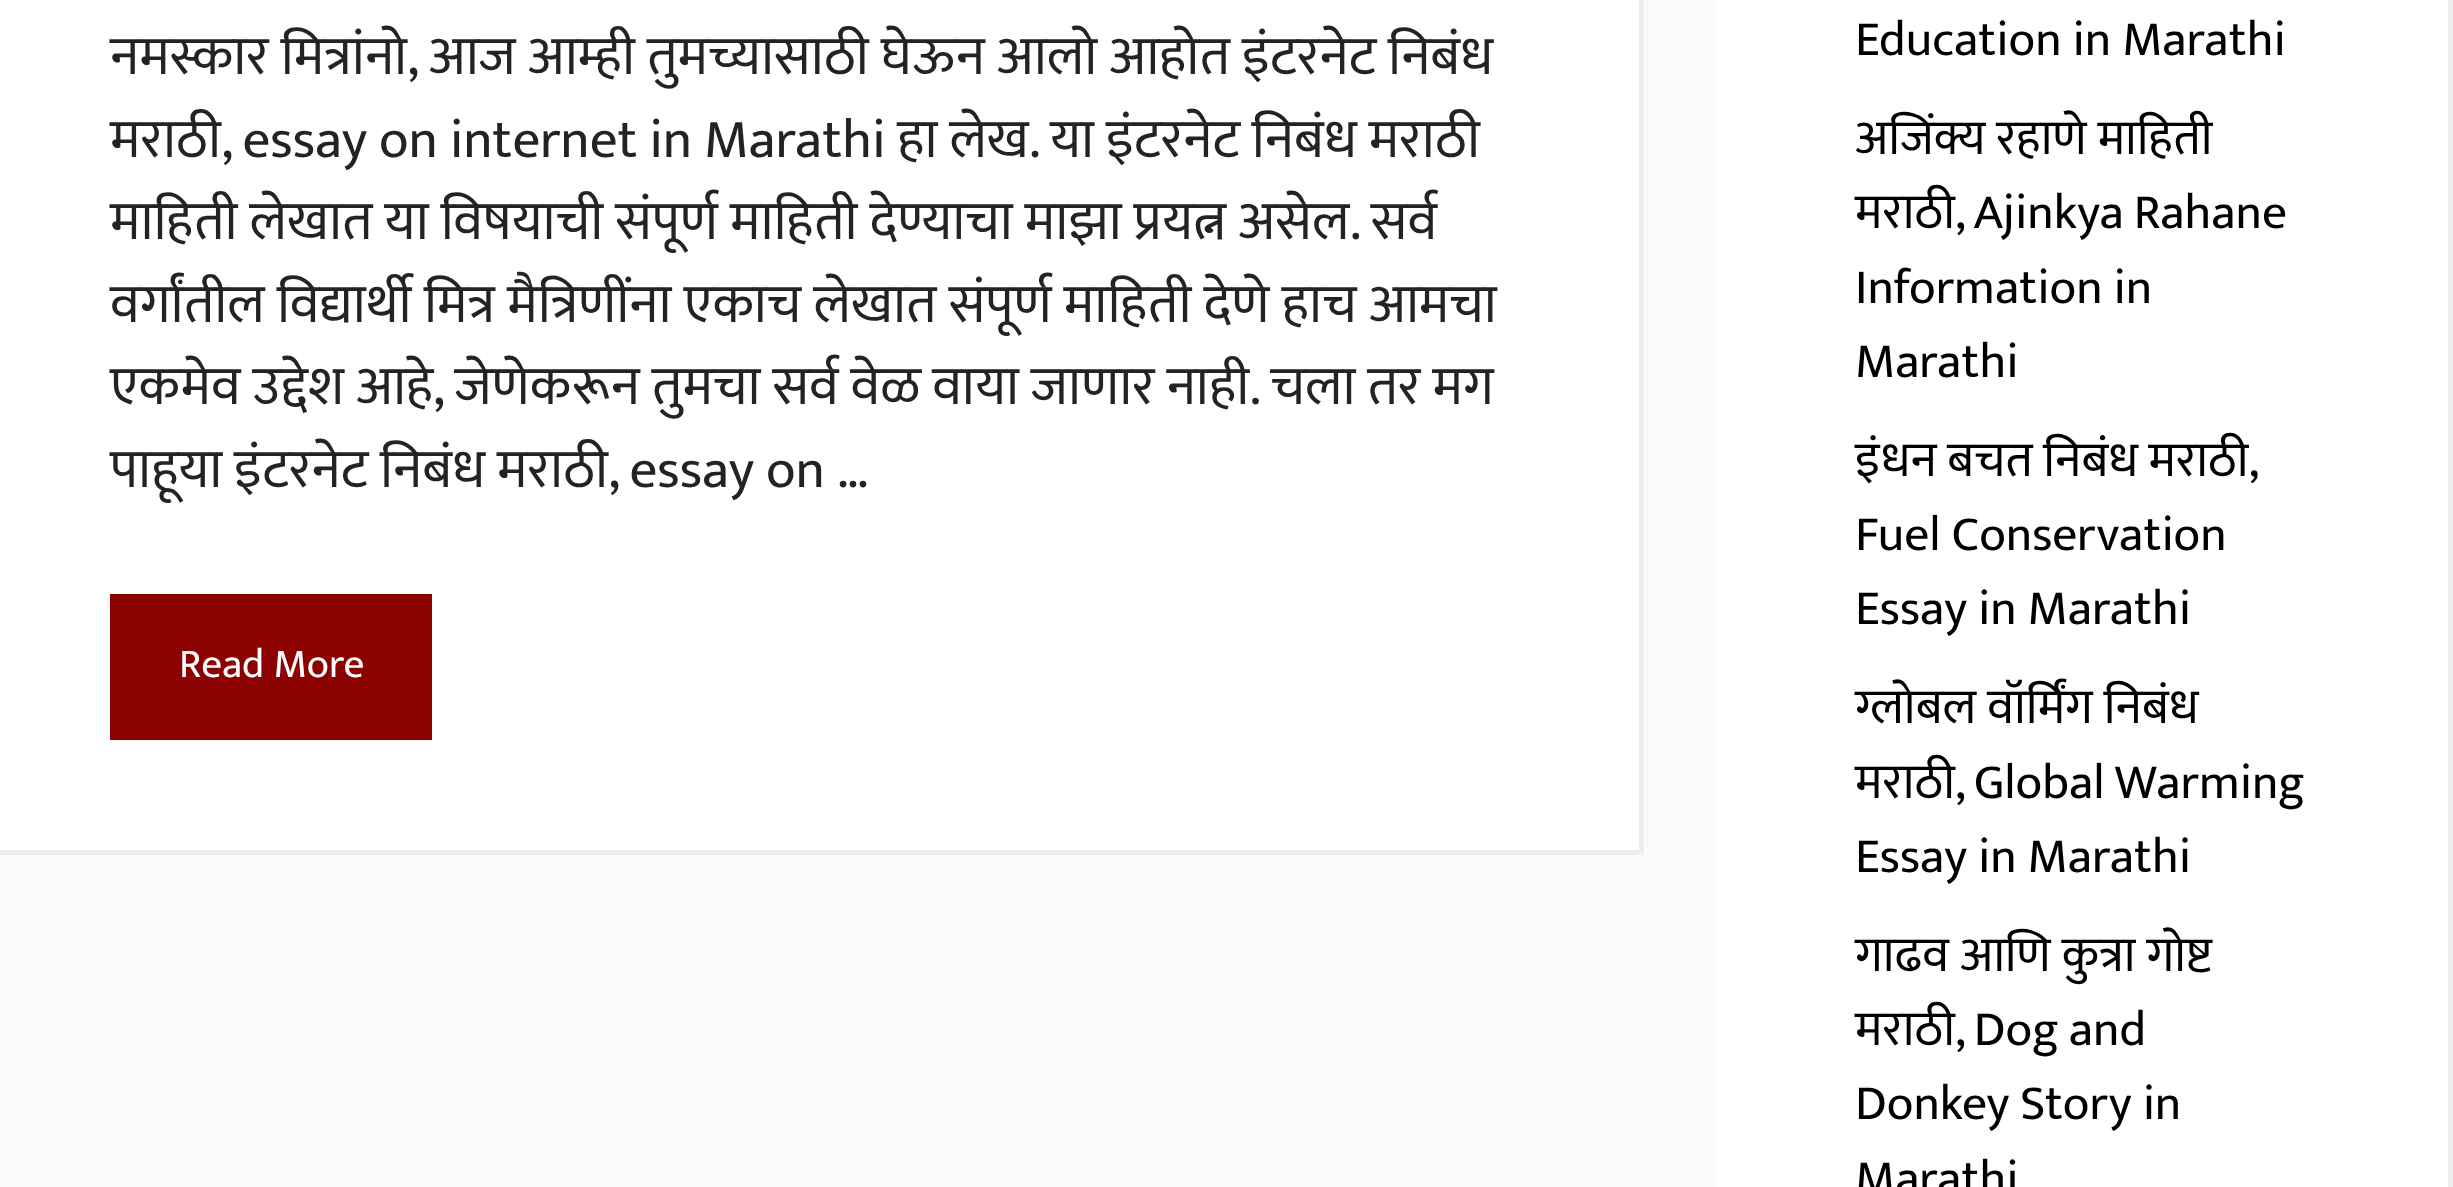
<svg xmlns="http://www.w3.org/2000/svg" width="2453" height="1187">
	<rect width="100%" height="100%" fill="#FAFAFA" />
	<rect x="0" y="0" width="1645" height="855" fill="#FFFFFF" />
	<path d="M1644-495V855L1639 850V-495Z" fill="#EDEDED" />
	<path d="M1644 855H0V850H1639Z" fill="#000000" fill-opacity="0.07" />
	<g font-family="Ek Mukta" font-size="55" fill="#242226">
		<text x="110" y="74" word-spacing="-0.25">नमस्कार मित्रांनो, आज आम्ही तुमच्यासाठी घेऊन आलो आहोत इंटरनेट निबंध</text>
		<text x="110" y="157" word-spacing="-0.4">मराठी, essay on internet in Marathi हा लेख. या इंटरनेट निबंध मराठी</text>
		<text x="110" y="239" word-spacing="-0.25">माहिती लेखात या विषयाची संपूर्ण माहिती देण्याचा माझा प्रयत्न असेल. सर्व</text>
		<text x="110" y="322">वर्गांतील विद्यार्थी मित्र मैत्रिणींना एकाच लेखात संपूर्ण माहिती देणे हाच आमचा</text>
		<text x="110" y="404" word-spacing="-0.4">एकमेव उद्देश आहे, जेणेकरून तुमचा सर्व वेळ वाया जाणार नाही. चला तर मग</text>
		<text x="110" y="487" word-spacing="-0.4">पाहूया इंटरनेट निबंध मराठी, essay on …</text>
	</g>
	<rect x="110" y="594" width="322" height="146" fill="#8C0202" />
	<text x="179" y="677" font-family="Ek Mukta" font-size="41.25" fill="#FFFFFF">Read More</text>
	<rect x="1716" y="0" width="732" height="1187" fill="#FFFFFF" />
	<path d="M2453-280V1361L2448 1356V-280Z" fill="#EDEDED" />
	<g font-family="Ek Mukta" font-size="49.5" fill="#000000">
		<text x="1855" y="55">Education in Marathi</text>
		<text x="1855" y="154">अजिंक्य रहाणे माहिती</text>
		<text x="1855" y="228" word-spacing="-1">मराठी, Ajinkya Rahane</text>
		<text x="1855" y="303">Information in</text>
		<text x="1855" y="377">Marathi</text>
		<text x="1855" y="476" word-spacing="-0.5">इंधन बचत निबंध मराठी,</text>
		<text x="1855" y="550">Fuel Conservation</text>
		<text x="1855" y="624">Essay in Marathi</text>
		<text x="1855" y="723">ग्लोबल वॉर्मिंग निबंध</text>
		<text x="1855" y="798" word-spacing="-1">मराठी, Global Warming</text>
		<text x="1855" y="872">Essay in Marathi</text>
		<text x="1855" y="971">गाढव आणि कुत्रा गोष्ट</text>
		<text x="1855" y="1045" word-spacing="-1">मराठी, Dog and</text>
		<text x="1855" y="1119">Donkey Story in</text>
		<text x="1855" y="1194">Marathi</text>
	</g>
</svg>
